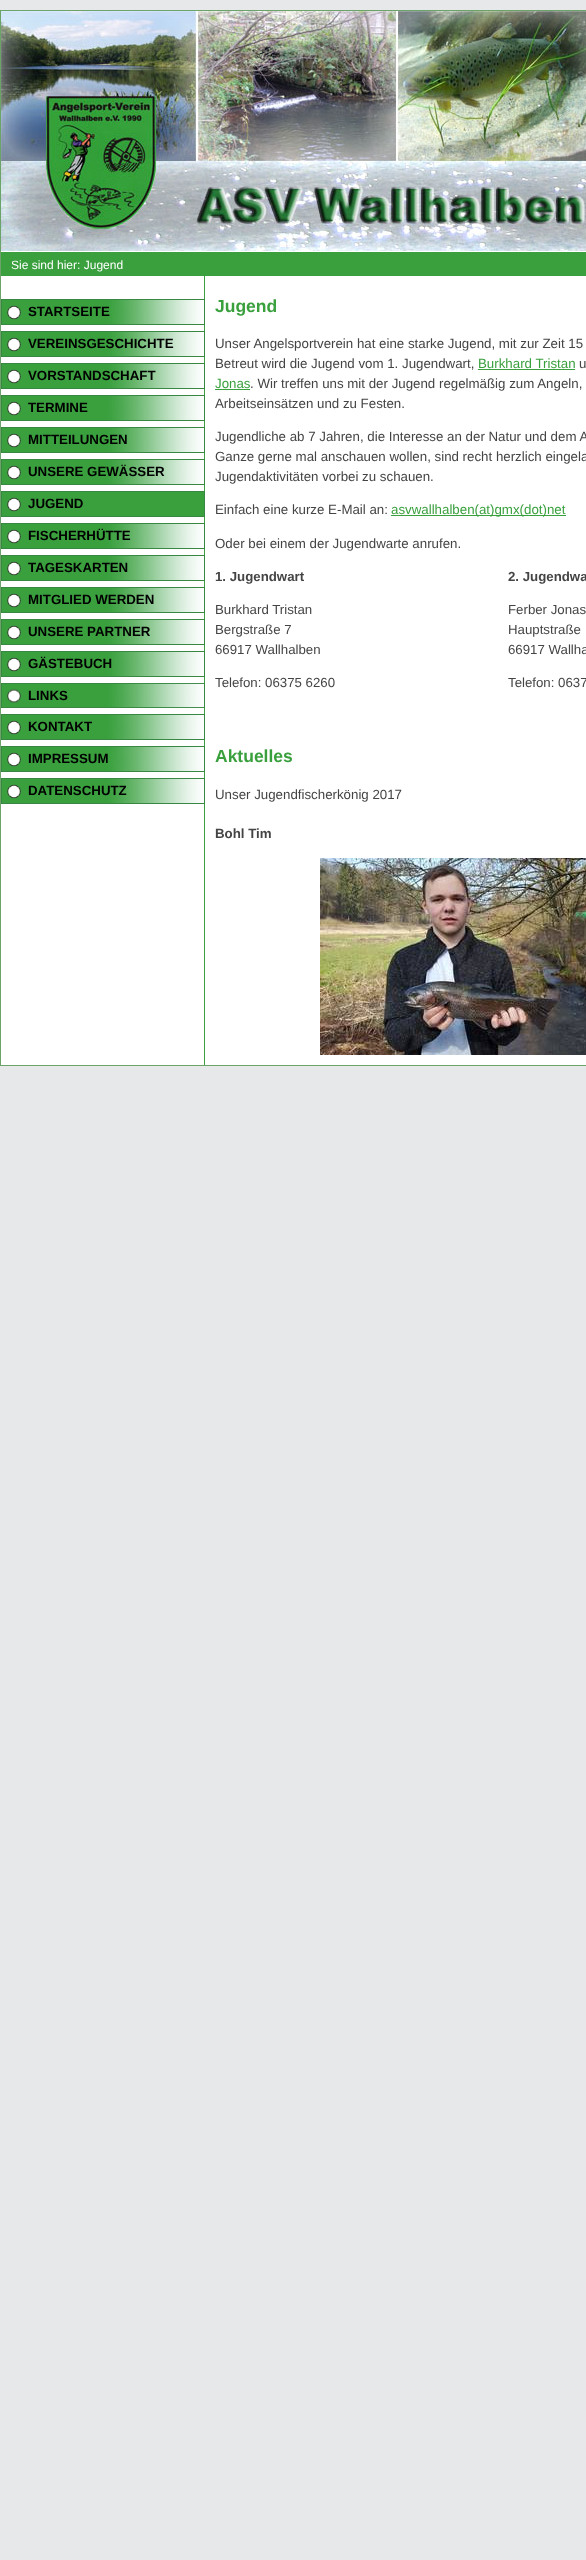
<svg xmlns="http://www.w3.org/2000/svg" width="586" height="2560">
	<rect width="100%" height="100%" fill="#E7E8EA" />
	<rect x="1" y="251" width="585" height="814" fill="#FFFFFF" />
	<rect x="0.5" y="10.5" width="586" height="1055" fill="none" stroke="#6BA368" />
	<image x="1" y="11" width="585" height="240" href="assets/img1.png" />
	<rect x="204" y="276" width="1" height="789" fill="#3AA03E" />
	<rect x="1" y="252" width="585" height="24" fill="#3AA03E" />
	<text x="11" y="269" font-family="Liberation Sans" font-size="12" fill="#FFFFFF">Sie sind hier: Jugend</text>
	<image x="1" y="299" width="204" height="26" href="assets/img2.png" />
	<text x="28" y="316" font-family="Liberation Sans" font-size="13.3" font-weight="700" fill="#000000">STARTSEITE</text>
	<image x="1" y="331" width="204" height="26" href="assets/img2.png" />
	<text x="28" y="348" font-family="Liberation Sans" font-size="13.3" font-weight="700" fill="#000000">VEREINSGESCHICHTE</text>
	<image x="1" y="363" width="204" height="26" href="assets/img2.png" />
	<text x="28" y="380" font-family="Liberation Sans" font-size="13.3" font-weight="700" fill="#000000">VORSTANDSCHAFT</text>
	<image x="1" y="395" width="204" height="26" href="assets/img2.png" />
	<text x="28" y="412" font-family="Liberation Sans" font-size="13.3" font-weight="700" fill="#000000">TERMINE</text>
	<image x="1" y="427" width="204" height="26" href="assets/img2.png" />
	<text x="28" y="444" font-family="Liberation Sans" font-size="13.3" font-weight="700" fill="#000000">MITTEILUNGEN</text>
	<image x="1" y="459" width="204" height="26" href="assets/img2.png" />
	<text x="28" y="476" font-family="Liberation Sans" font-size="13.3" font-weight="700" fill="#000000">UNSERE GEWÄSSER</text>
	<image x="1" y="491" width="204" height="26" href="assets/img3.png" />
	<text x="28" y="508" font-family="Liberation Sans" font-size="13.3" font-weight="700" fill="#000000">JUGEND</text>
	<image x="1" y="523" width="204" height="26" href="assets/img2.png" />
	<text x="28" y="540" font-family="Liberation Sans" font-size="13.3" font-weight="700" fill="#000000">FISCHERHÜTTE</text>
	<image x="1" y="555" width="204" height="26" href="assets/img2.png" />
	<text x="28" y="572" font-family="Liberation Sans" font-size="13.3" font-weight="700" fill="#000000">TAGESKARTEN</text>
	<image x="1" y="587" width="204" height="26" href="assets/img2.png" />
	<text x="28" y="604" font-family="Liberation Sans" font-size="13.3" font-weight="700" fill="#000000">MITGLIED WERDEN</text>
	<image x="1" y="619" width="204" height="26" href="assets/img2.png" />
	<text x="28" y="636" font-family="Liberation Sans" font-size="13.3" font-weight="700" fill="#000000">UNSERE PARTNER</text>
	<image x="1" y="651" width="204" height="26" href="assets/img2.png" />
	<text x="28" y="668" font-family="Liberation Sans" font-size="13.3" font-weight="700" fill="#000000">GÄSTEBUCH</text>
	<image x="1" y="683" width="204" height="25" href="assets/img4.png" />
	<text x="28" y="700" font-family="Liberation Sans" font-size="13.3" font-weight="700" fill="#000000">LINKS</text>
	<image x="1" y="714" width="204" height="26" href="assets/img2.png" />
	<text x="28" y="731" font-family="Liberation Sans" font-size="13.3" font-weight="700" fill="#000000">KONTAKT</text>
	<image x="1" y="746" width="204" height="26" href="assets/img2.png" />
	<text x="28" y="763" font-family="Liberation Sans" font-size="13.3" font-weight="700" fill="#000000">IMPRESSUM</text>
	<image x="1" y="778" width="204" height="26" href="assets/img2.png" />
	<text x="28" y="795" font-family="Liberation Sans" font-size="13.3" font-weight="700" fill="#000000">DATENSCHUTZ</text>
	<text x="215" y="312" font-family="Liberation Sans" font-size="17.5" font-weight="700" fill="#3AA03E">Jugend</text>
	<g font-family="Liberation Sans" font-size="13.3" fill="#444444">
		<text x="215" y="348">Unser Angelsportverein hat eine starke Jugend, mit zur Zeit 15</text>
		<text x="215" y="368">Betreut wird die Jugend vom 1. Jugendwart,</text>
	</g>
	<text x="478" y="368" font-family="Liberation Sans" font-size="13.3" fill="#3AA03E">Burkhard Tristan</text>
	<rect x="478" y="369" width="97" height="1" fill="#3AA03E" />
	<text x="579" y="368" font-family="Liberation Sans" font-size="13.3" fill="#444444">u</text>
	<text x="215" y="388" font-family="Liberation Sans" font-size="13.3" fill="#3AA03E">Jonas</text>
	<rect x="215" y="389" width="35" height="1" fill="#3AA03E" />
	<g font-family="Liberation Sans" font-size="13.3" fill="#444444">
		<text x="250" y="388">. Wir treffen uns mit der Jugend regelmäßig zum Angeln,</text>
		<text x="215" y="408">Arbeitseinsätzen und zu Festen.</text>
		<text x="215" y="441">Jugendliche ab 7 Jahren, die Interesse an der Natur und dem A</text>
		<text x="215" y="461">Ganze gerne mal anschauen wollen, sind recht herzlich eingela</text>
		<text x="215" y="481">Jugendaktivitäten vorbei zu schauen.</text>
		<text x="215" y="514">Einfach eine kurze E-Mail an:</text>
	</g>
	<rect x="391" y="515" width="175" height="1" fill="#3AA03E" />
	<text x="391" y="514" font-family="Liberation Sans" font-size="13.3" fill="#3AA03E">asvwallhalben(at)gmx(dot)net</text>
	<text x="215" y="548" font-family="Liberation Sans" font-size="13.3" fill="#444444">Oder bei einem der Jugendwarte anrufen.</text>
	<text x="215" y="581" font-family="Liberation Sans" font-size="13.25" font-weight="700" fill="#444444">1. Jugendwart</text>
	<g font-family="Liberation Sans" font-size="13.25" fill="#444444">
		<text x="215" y="614">Burkhard Tristan</text>
		<text x="215" y="634">Bergstraße 7</text>
		<text x="215" y="654">66917 Wallhalben</text>
		<text x="215" y="687">Telefon: 06375 6260</text>
	</g>
	<text x="508" y="581" font-family="Liberation Sans" font-size="13.25" font-weight="700" fill="#444444">2. Jugendwa</text>
	<g font-family="Liberation Sans" font-size="13.25" fill="#444444">
		<text x="508" y="614">Ferber Jonas</text>
		<text x="508" y="634">Hauptstraße</text>
		<text x="508" y="654">66917 Wallha</text>
		<text x="508" y="687">Telefon: 0637</text>
	</g>
	<text x="215" y="762" font-family="Liberation Sans" font-size="17.5" font-weight="700" fill="#3AA03E">Aktuelles</text>
	<text x="215" y="799" font-family="Liberation Sans" font-size="13.3" fill="#444444">Unser Jugendfischerkönig 2017</text>
	<text x="215" y="838" font-family="Liberation Sans" font-size="13.3" font-weight="700" fill="#444444">Bohl Tim</text>
	<image x="320" y="858" width="266" height="197" href="assets/img5.png" />
</svg>
